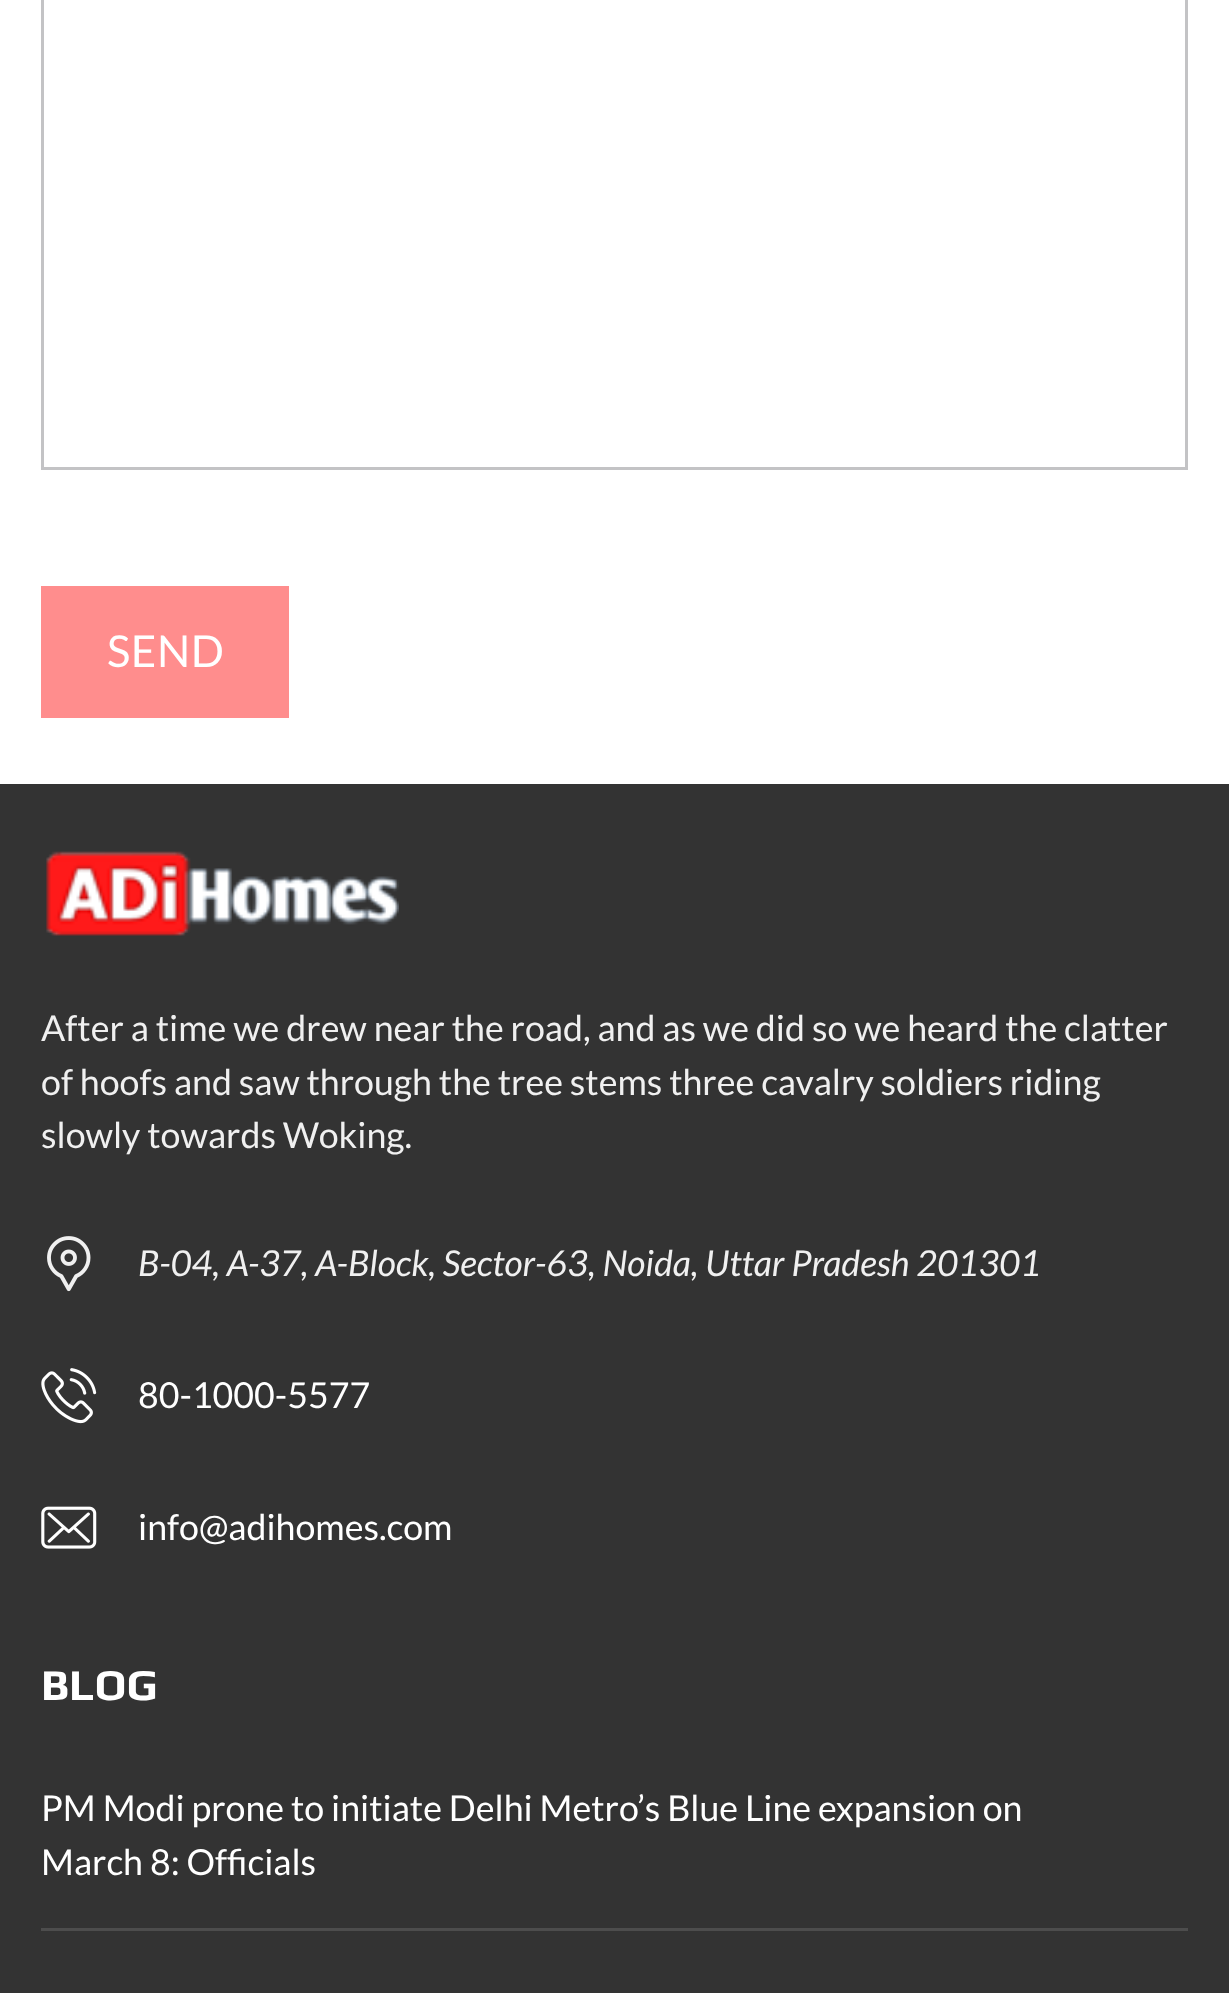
<svg xmlns="http://www.w3.org/2000/svg" width="1229" height="1993">
	<rect width="100%" height="100%" fill="#FFFFFF" />
	<rect x="42.5" y="-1.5" width="1144" height="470" fill="none" stroke="#C3C3C5" stroke-width="3" />
	<rect x="41" y="586" width="248" height="132" fill="#FF8D8D" />
	<text x="107" y="667" font-family="Lato" font-size="44" letter-spacing="0.5" fill="#FFFFFF">SEND</text>
	<rect x="0" y="784" width="1229" height="1209" fill="#333333" />
	<image x="46" y="851" width="353" height="85" href="assets/img1.png" />
	<g font-family="Lato" font-size="35.75" fill="#F0F0F0">
		<text x="41" y="1041">After a time we drew near the road, and as we did so we heard the clatter</text>
		<text x="41" y="1095">of hoofs and saw through the tree stems three cavalry soldiers riding</text>
		<text x="41" y="1148">slowly towards Woking.</text>
	</g>
	<image x="47" y="1236" width="44" height="56" href="assets/img2.png" />
	<text x="138" y="1276" font-family="Lato" font-size="35.75" font-style="italic" fill="#F0F0F0">B-04, A-37, A-Block, Sector-63, Noida, Uttar Pradesh 201301</text>
	<image x="41" y="1368" width="56" height="56" href="assets/img3.png" />
	<text x="138" y="1408" font-family="Lato" font-size="35.75" fill="#FFFFFF">80-1000-5577</text>
	<image x="41" y="1506" width="56" height="43" href="assets/img4.png" />
	<text x="138" y="1540" font-family="Lato" font-size="35.75" fill="#FFFFFF">info@adihomes.com</text>
	<text x="41" y="1700" font-family="Play" font-size="44" font-weight="700" fill="#FFFFFF">BLOG</text>
	<rect x="41" y="1928" width="1147" height="3" fill="#4D4D4D" />
	<g font-family="Lato" font-size="35.75" fill="#FFFFFF">
		<text x="41" y="1821">PM Modi prone to initiate Delhi Metro’s Blue Line expansion on</text>
		<text x="41" y="1875">March 8: Officials</text>
	</g>
</svg>
